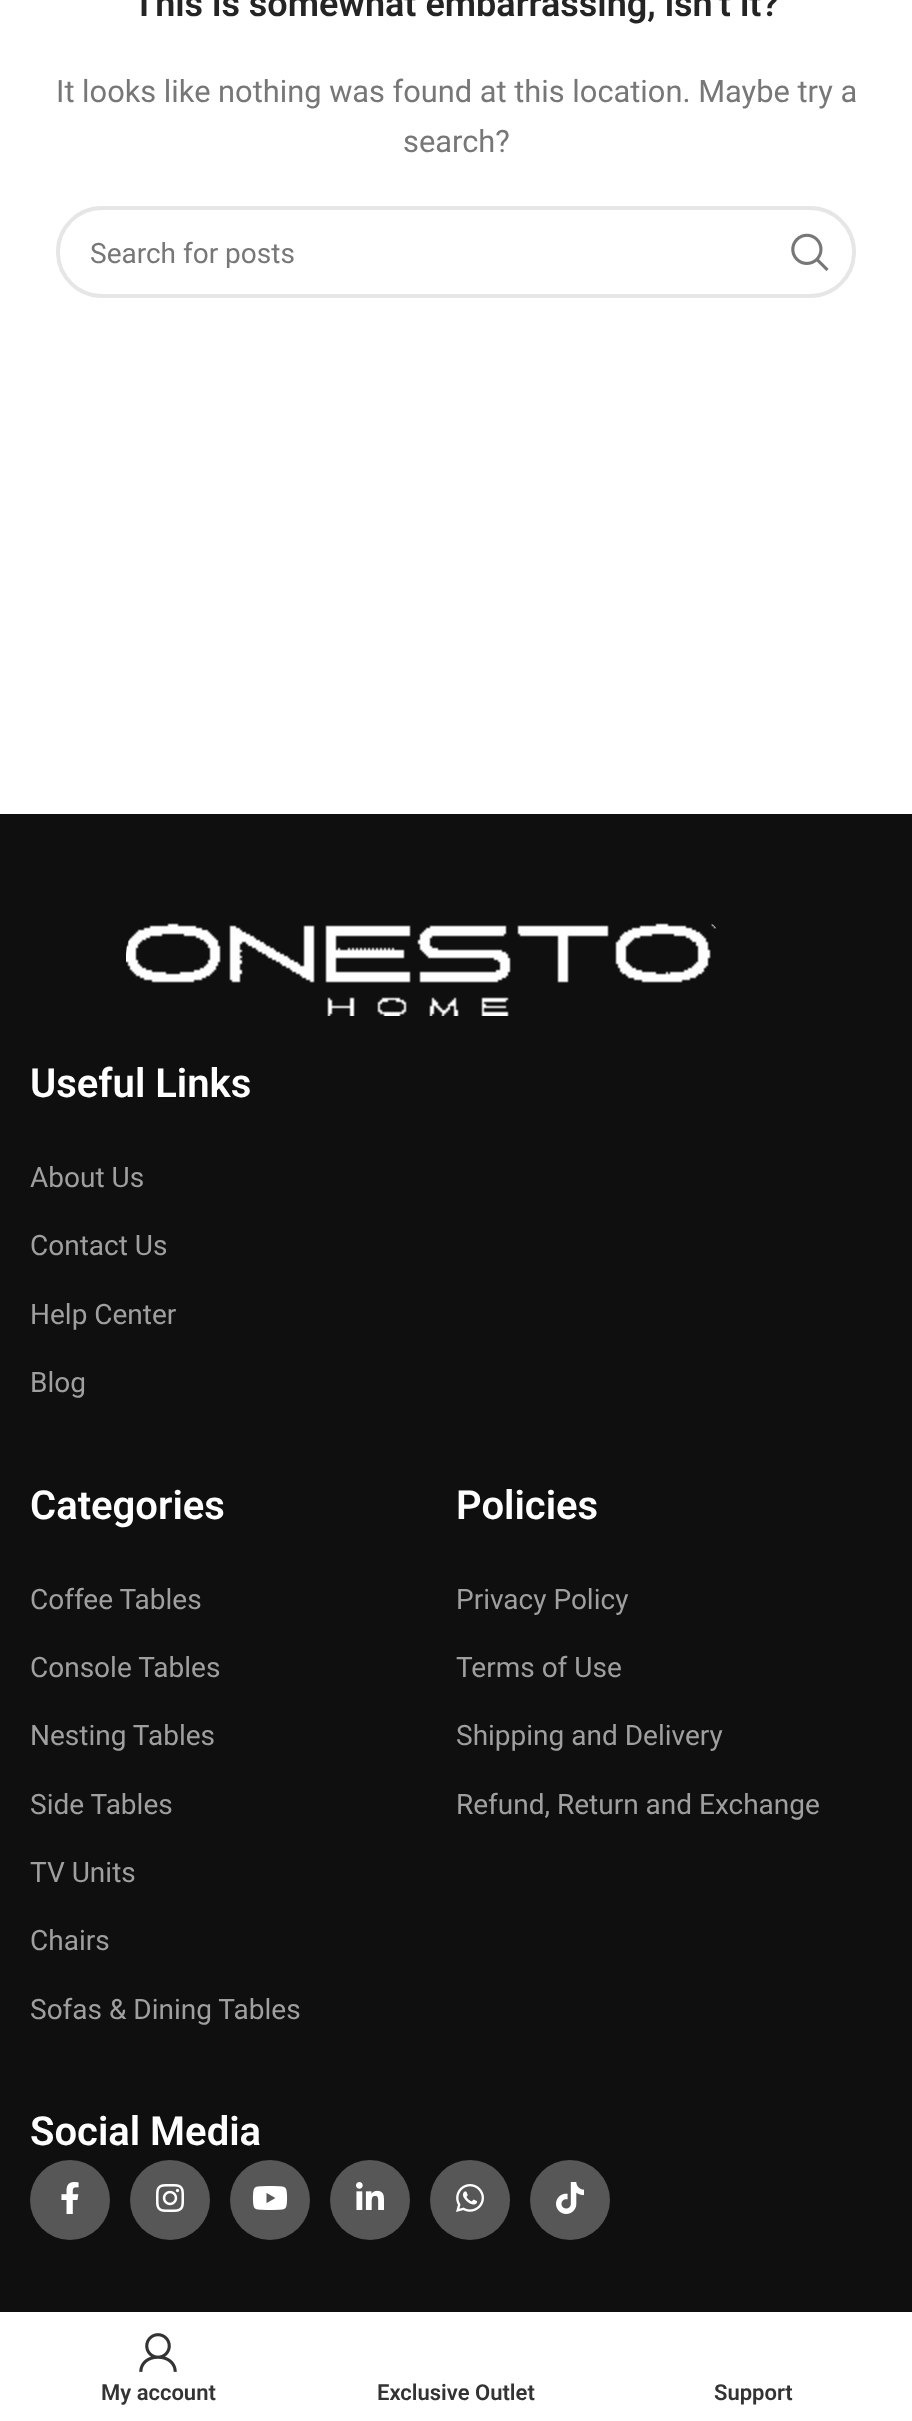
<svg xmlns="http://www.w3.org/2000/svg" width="912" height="2421">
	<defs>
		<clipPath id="clip1"><rect x="90" y="236" width="610" height="32" /></clipPath>
	</defs>
	<rect width="100%" height="100%" fill="#FFFFFF" />
	<text x="133" y="16" font-family="Roboto" font-size="36" font-weight="600" fill="#242424">This is somewhat embarrassing, isn’t it?</text>
	<g font-family="Roboto" font-size="30.8" fill="#777777">
		<text x="56" y="102">It looks like nothing was found at this location. Maybe try a</text>
		<text x="403" y="152">search?</text>
	</g>
	<rect x="58" y="208" width="796" height="88" rx="44" fill="none" stroke="#E6E6E6" stroke-width="4" />
	<g clip-path="url(#clip1)">
		<text x="90" y="263" font-family="Roboto" font-size="28" fill="#777777">Search for posts</text>
	</g>
	<image x="791" y="233" width="38" height="38" href="assets/img1.png" />
	<rect x="0" y="814" width="912" height="1498" fill="#0F0F0F" />
	<image x="126" y="923" width="591" height="93" href="assets/img2.png" />
	<text x="30" y="1097" font-family="Roboto" font-size="40" font-weight="600" fill="#FFFFFF">Useful Links</text>
	<g font-family="Roboto" font-size="28" fill="#9F9F9F">
		<text x="30" y="1187">About Us</text>
		<text x="30" y="1255">Contact Us</text>
		<text x="30" y="1324">Help Center</text>
		<text x="30" y="1392">Blog</text>
	</g>
	<text x="30" y="1519" font-family="Roboto" font-size="40" font-weight="600" fill="#FFFFFF">Categories</text>
	<g font-family="Roboto" font-size="28" fill="#9F9F9F">
		<text x="30" y="1609">Coffee Tables</text>
		<text x="30" y="1677">Console Tables</text>
		<text x="30" y="1745">Nesting Tables</text>
		<text x="30" y="1814">Side Tables</text>
		<text x="30" y="1882">TV Units</text>
		<text x="30" y="1950">Chairs</text>
		<text x="30" y="2019">Sofas &amp; Dining Tables</text>
	</g>
	<text x="456" y="1519" font-family="Roboto" font-size="40" font-weight="600" fill="#FFFFFF">Policies</text>
	<g font-family="Roboto" font-size="28" fill="#9F9F9F">
		<text x="456" y="1609">Privacy Policy</text>
		<text x="456" y="1677">Terms of Use</text>
		<text x="456" y="1745">Shipping and Delivery</text>
		<text x="456" y="1814">Refund, Return and Exchange</text>
	</g>
	<text x="30" y="2145" font-family="Roboto" font-size="40" font-weight="600" fill="#FFFFFF">Social Media</text>
	<circle cx="70" cy="2200" r="40" fill="#575757" />
	<image x="61" y="2182" width="18" height="32" href="assets/img3.png" />
	<circle cx="170" cy="2200" r="40" fill="#575757" />
	<image x="156" y="2184" width="28" height="28" href="assets/img4.png" />
	<circle cx="270" cy="2200" r="40" fill="#575757" />
	<image x="252" y="2186" width="36" height="24" href="assets/img5.png" />
	<circle cx="370" cy="2200" r="40" fill="#575757" />
	<image x="356" y="2182" width="28" height="28" href="assets/img6.png" />
	<circle cx="470" cy="2200" r="40" fill="#575757" />
	<image x="456" y="2184" width="28" height="28" href="assets/img7.png" />
	<circle cx="570" cy="2200" r="40" fill="#575757" />
	<image x="556" y="2182" width="28" height="32" href="assets/img8.png" />
	<image x="139" y="2333" width="38" height="39" href="assets/img9.png" />
	<g font-family="Roboto" font-size="22" font-weight="600" fill="#333333">
		<text x="101" y="2400">My account</text>
		<text x="377" y="2400">Exclusive Outlet</text>
		<text x="714" y="2400">Support</text>
	</g>
</svg>
